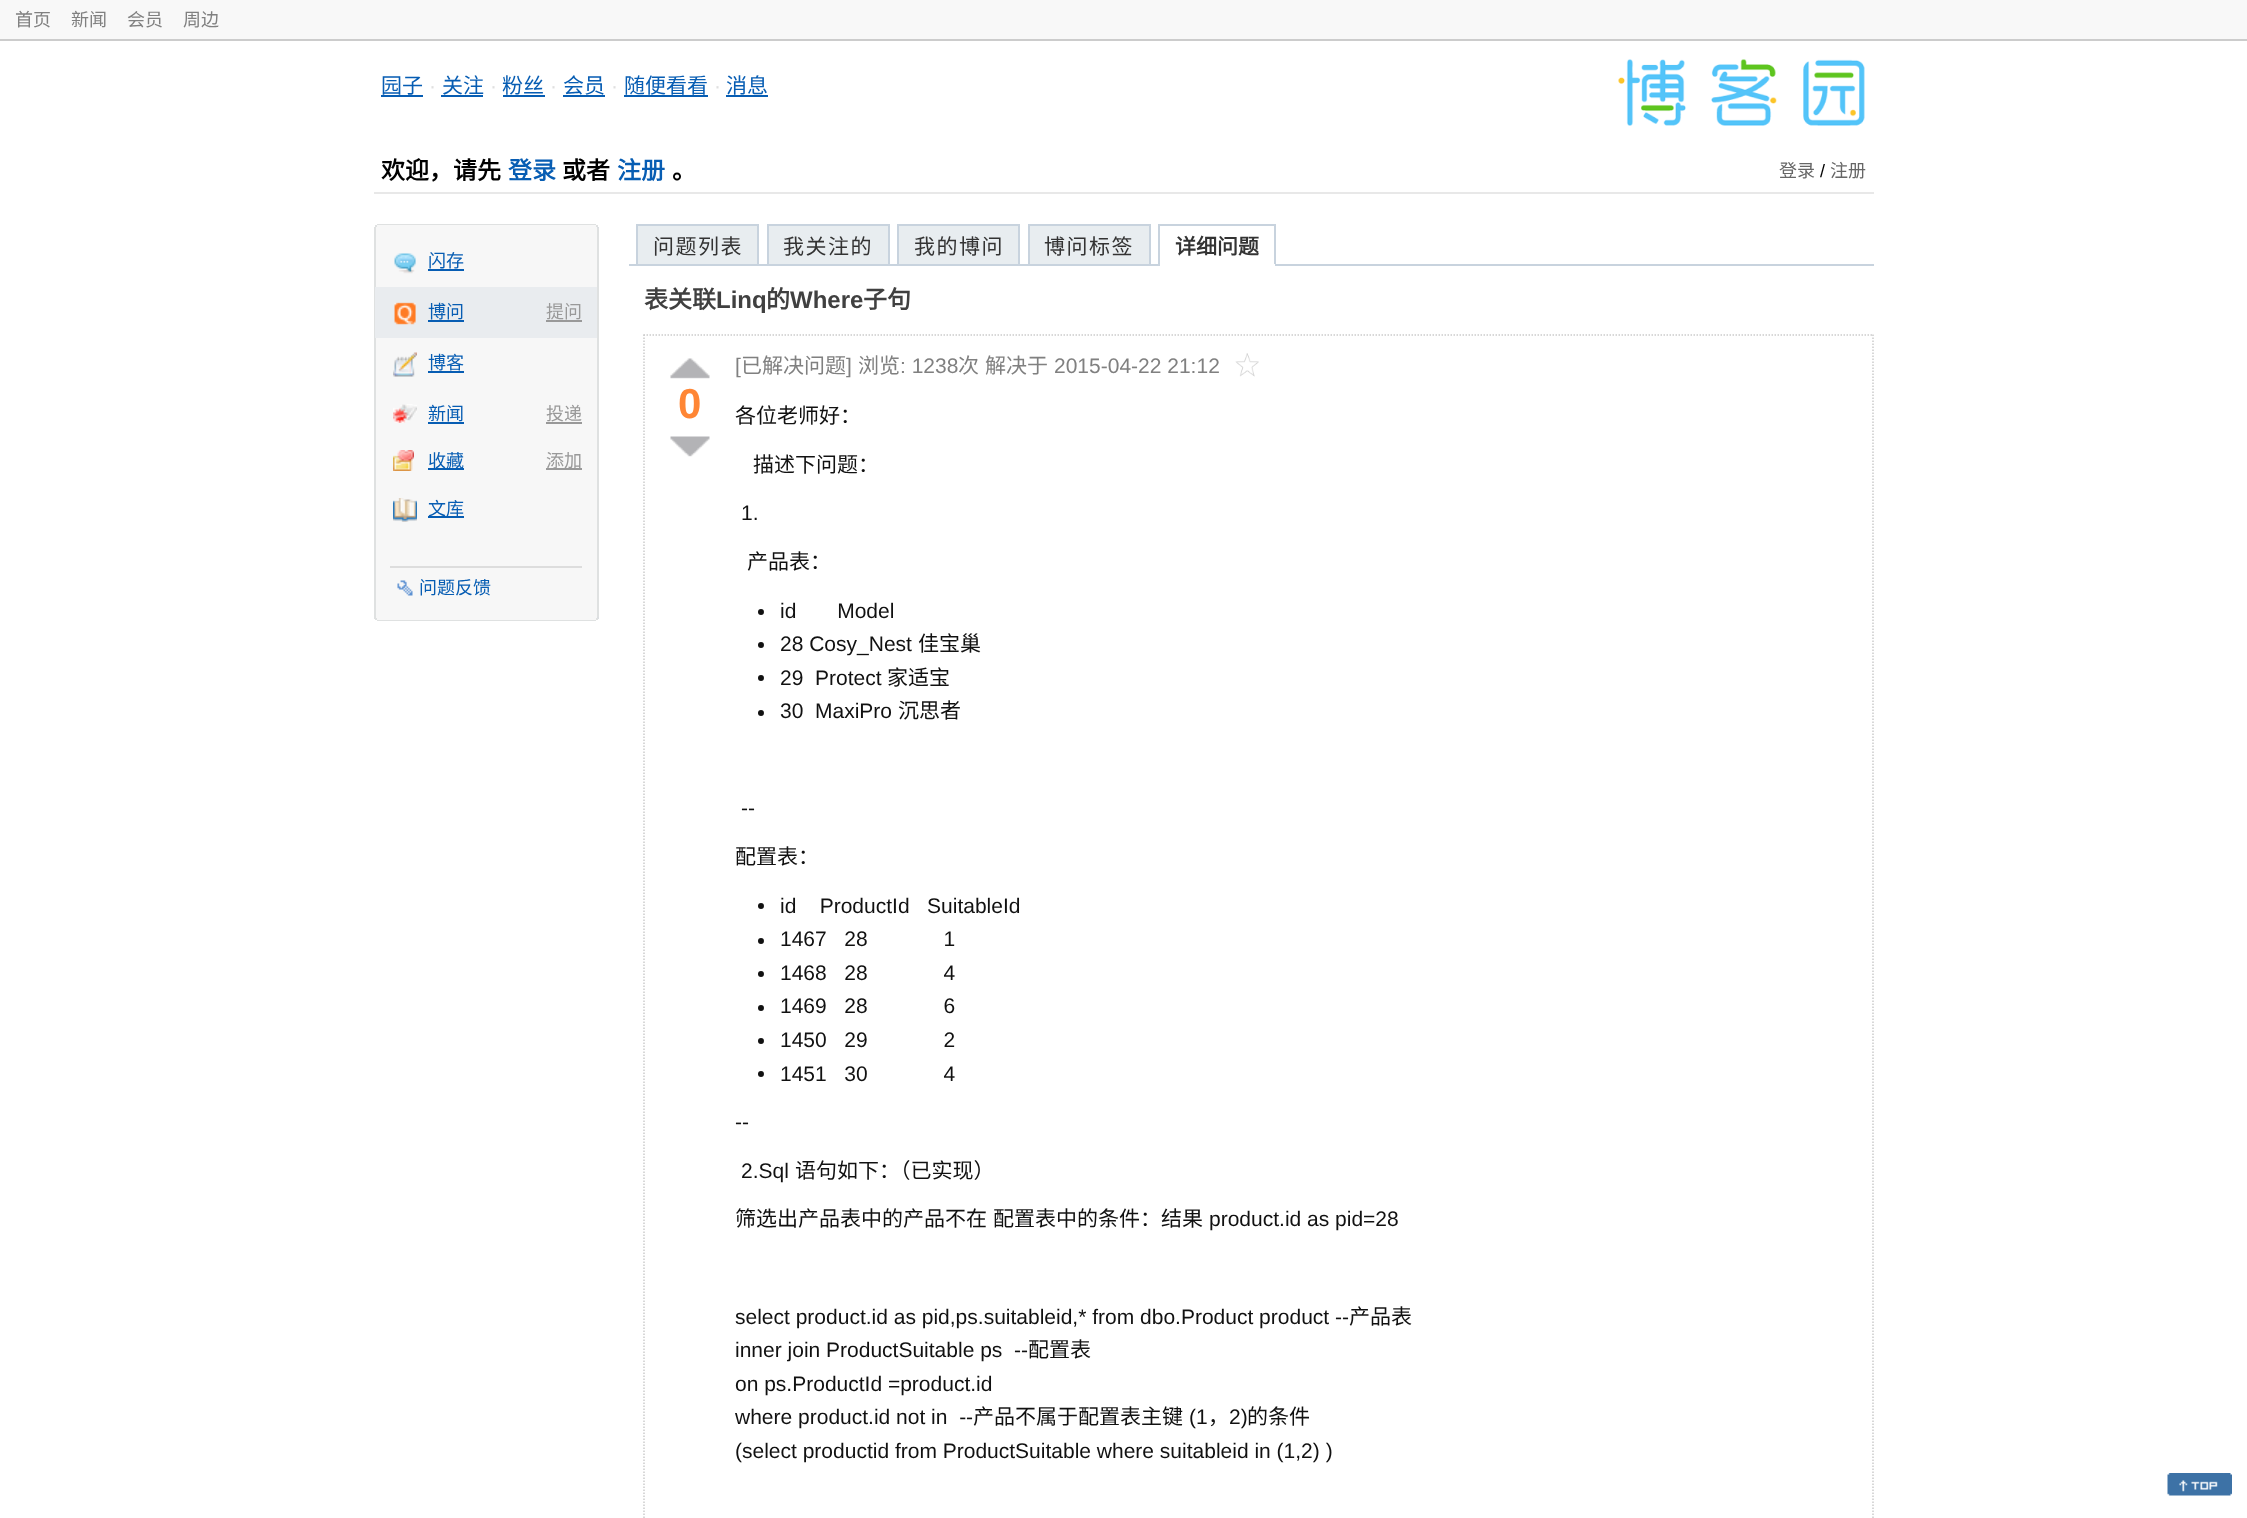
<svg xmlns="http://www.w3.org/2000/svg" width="2247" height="1518">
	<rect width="100%" height="100%" fill="#FFFFFF" />
	<rect x="0" y="0" width="2247" height="39" fill="#F8F8F8" />
	<rect x="0" y="39" width="2247" height="2" fill="#CCCCCC" />
	<g font-family="Noto Sans CJK SC" font-size="18" fill="#808080">
		<text x="15" y="26">首页</text>
		<text x="71" y="26">新闻</text>
		<text x="127" y="26">会员</text>
		<text x="183" y="26">周边</text>
	</g>
	<rect x="374" y="192" width="1500" height="2" fill="#E8E8E8" />
	<text x="381" y="93" font-family="Noto Sans CJK SC" font-size="21" fill="#075DB3">园子</text>
	<rect x="381" y="95" width="42" height="2" fill="#075DB3" />
	<text x="429" y="93" font-family="Liberation Sans" font-size="21" fill="#DFDFDF">·</text>
	<text x="442" y="93" font-family="Noto Sans CJK SC" font-size="21" fill="#075DB3">关注</text>
	<rect x="441" y="95" width="42" height="2" fill="#075DB3" />
	<text x="490" y="93" font-family="Liberation Sans" font-size="21" fill="#DFDFDF">·</text>
	<text x="502" y="93" font-family="Noto Sans CJK SC" font-size="21" fill="#075DB3">粉丝</text>
	<rect x="503" y="95" width="42" height="2" fill="#075DB3" />
	<text x="550" y="93" font-family="Liberation Sans" font-size="21" fill="#DFDFDF">·</text>
	<text x="563" y="93" font-family="Noto Sans CJK SC" font-size="21" fill="#075DB3">会员</text>
	<rect x="563" y="95" width="42" height="2" fill="#075DB3" />
	<text x="611" y="93" font-family="Liberation Sans" font-size="21" fill="#DFDFDF">·</text>
	<text x="624" y="93" font-family="Noto Sans CJK SC" font-size="21" fill="#075DB3">随便看看</text>
	<rect x="624" y="95" width="84" height="2" fill="#075DB3" />
	<text x="714" y="93" font-family="Liberation Sans" font-size="21" fill="#DFDFDF">·</text>
	<text x="726" y="93" font-family="Noto Sans CJK SC" font-size="21" fill="#075DB3">消息</text>
	<rect x="726" y="95" width="42" height="2" fill="#075DB3" />
	<image x="1618" y="59" width="247" height="67" href="assets/img1.png" />
	<text x="381" y="179" font-family="Noto Sans CJK SC" font-size="24" font-weight="700" fill="#000000">欢迎，请先</text>
	<text x="508" y="179" font-family="Noto Sans CJK SC" font-size="24" font-weight="700" fill="#075DB3">登录</text>
	<text x="562" y="179" font-family="Noto Sans CJK SC" font-size="24" font-weight="700" fill="#000000">或者</text>
	<text x="617" y="179" font-family="Noto Sans CJK SC" font-size="24" font-weight="700" fill="#075DB3">注册</text>
	<text x="672" y="179" font-family="Noto Sans CJK SC" font-size="24" font-weight="700" fill="#000000">。</text>
	<text x="1779" y="177" font-family="Noto Sans CJK SC" font-size="18" fill="#666666">登录</text>
	<text x="1820" y="177" font-family="Liberation Sans" font-size="18" fill="#000000">/</text>
	<text x="1830" y="177" font-family="Noto Sans CJK SC" font-size="18" fill="#666666">注册</text>
	<rect x="377" y="224" width="219" height="1" fill="#DFE1E1" />
	<rect x="375" y="225" width="222" height="2" fill="#F7F7F7" />
	<rect x="596" y="225" width="2" height="2" fill="#DFE1E1" />
	<rect x="375" y="225" width="2" height="2" fill="#DFE1E1" />
	<rect x="374" y="227" width="225" height="1" fill="#F7F7F7" />
	<rect x="597" y="227" width="2" height="1" fill="#DBDEE2" />
	<rect x="374" y="227" width="2" height="390" fill="#DFE1E1" />
	<rect x="376" y="228" width="221" height="389" fill="#F7F7F7" />
	<rect x="597" y="228" width="2" height="389" fill="#DFE1E1" />
	<image x="394" y="253" width="22" height="21" href="assets/img2.png" />
	<text x="428" y="267" font-family="Noto Sans CJK SC" font-size="18" fill="#075DB3">闪存</text>
	<rect x="428" y="269" width="36" height="2" fill="#075DB3" />
	<rect x="375" y="287" width="222" height="51" fill="#E9ECEF" />
	<image x="394" y="302" width="22" height="23" href="assets/img3.png" />
	<text x="428" y="318" font-family="Noto Sans CJK SC" font-size="18" fill="#075DB3">博问</text>
	<rect x="428" y="320" width="36" height="2" fill="#075DB3" />
	<text x="546" y="318" font-family="Noto Sans CJK SC" font-size="18" fill="#999999">提问</text>
	<rect x="546" y="320" width="36" height="2" fill="#999999" />
	<image x="393" y="352" width="24" height="25" href="assets/img4.png" />
	<text x="428" y="369" font-family="Noto Sans CJK SC" font-size="18" fill="#075DB3">博客</text>
	<rect x="428" y="371" width="36" height="2" fill="#075DB3" />
	<image x="393" y="404" width="24" height="19" href="assets/img5.png" />
	<text x="428" y="420" font-family="Noto Sans CJK SC" font-size="18" fill="#075DB3">新闻</text>
	<rect x="428" y="422" width="36" height="2" fill="#075DB3" />
	<text x="546" y="420" font-family="Noto Sans CJK SC" font-size="18" fill="#999999">投递</text>
	<rect x="546" y="422" width="36" height="2" fill="#999999" />
	<image x="393" y="450" width="21" height="21" href="assets/img6.png" />
	<rect x="428" y="468" width="36" height="2" fill="#075DB3" />
	<text x="428" y="467" font-family="Noto Sans CJK SC" font-size="18" fill="#075DB3">收藏</text>
	<rect x="546" y="468" width="36" height="2" fill="#999999" />
	<text x="546" y="467" font-family="Noto Sans CJK SC" font-size="18" fill="#999999">添加</text>
	<image x="393" y="498" width="24" height="24" href="assets/img7.png" />
	<rect x="428" y="516" width="36" height="2" fill="#075DB3" />
	<text x="428" y="515" font-family="Noto Sans CJK SC" font-size="18" fill="#075DB3">文库</text>
	<rect x="390" y="566" width="192" height="2" fill="#DDDDDD" />
	<image x="397" y="580" width="16" height="16" href="assets/img8.png" />
	<text x="419" y="594" font-family="Noto Sans CJK SC" font-size="18" fill="#075DB3">问题反馈</text>
	<rect x="374" y="617" width="225" height="1" fill="#F7F7F7" />
	<rect x="597" y="617" width="2" height="2" fill="#DBDEE2" />
	<rect x="374" y="617" width="2" height="2" fill="#DFE1E1" />
	<rect x="375" y="618" width="222" height="2" fill="#F7F7F7" />
	<rect x="596" y="618" width="2" height="2" fill="#DFE1E1" />
	<rect x="375" y="618" width="2" height="2" fill="#DFE1E1" />
	<rect x="377" y="620" width="219" height="1" fill="#DFE1E1" />
	<rect x="629" y="264" width="1245" height="2" fill="#C8D3DE" />
	<rect x="637" y="225" width="121" height="40" fill="#E8EDF0" stroke="#C8D3DE" stroke-width="2" />
	<text x="653" y="254" font-family="Noto Sans CJK SC" font-size="21" letter-spacing="1.5" fill="#333333">问题列表</text>
	<rect x="768" y="225" width="121" height="40" fill="#E8EDF0" stroke="#C8D3DE" stroke-width="2" />
	<text x="783" y="254" font-family="Noto Sans CJK SC" font-size="21" letter-spacing="1.5" fill="#333333">我关注的</text>
	<rect x="898" y="225" width="121" height="40" fill="#E8EDF0" stroke="#C8D3DE" stroke-width="2" />
	<text x="914" y="254" font-family="Noto Sans CJK SC" font-size="21" letter-spacing="1.5" fill="#333333">我的博问</text>
	<rect x="1029" y="225" width="121" height="40" fill="#E8EDF0" stroke="#C8D3DE" stroke-width="2" />
	<text x="1044" y="254" font-family="Noto Sans CJK SC" font-size="21" letter-spacing="1.5" fill="#333333">博问标签</text>
	<rect x="1158" y="224" width="117" height="2" fill="#C8D3DE" />
	<rect x="1274" y="224" width="2" height="42" fill="#C8D3DE" />
	<rect x="1158" y="264" width="117" height="2" fill="#FFFFFF" />
	<rect x="1158" y="224" width="2" height="42" fill="#C8D3DE" />
	<text x="1175" y="254" font-family="Noto Sans CJK SC" font-size="21" font-weight="700" fill="#333333">详细问题</text>
	<text x="644" y="308" font-family="Noto Sans CJK SC" font-size="24" font-weight="700" fill="#404040">表关联</text>
	<text x="716" y="308" font-family="Liberation Sans" font-size="24" font-weight="700" fill="#404040">Linq</text>
	<text x="766" y="308" font-family="Noto Sans CJK SC" font-size="24" font-weight="700" fill="#404040">的</text>
	<text x="790" y="308" font-family="Liberation Sans" font-size="24" font-weight="700" fill="#404040">Where</text>
	<text x="863" y="308" font-family="Noto Sans CJK SC" font-size="24" font-weight="700" fill="#404040">子句</text>
	<path d="M643.5 335H1873.5" fill="none" stroke="#CCCCCC" stroke-width="1.5" stroke-dasharray="1.5 1.5" />
	<path d="M1873 334.5V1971" fill="none" stroke="#CCCCCC" stroke-width="1.5" stroke-dasharray="1.5 1.5" />
	<path d="M644 334.5V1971" fill="none" stroke="#CCCCCC" stroke-width="1.5" stroke-dasharray="1.5 1.5" />
	<image x="670" y="358" width="40" height="21" href="assets/img9.png" />
	<text x="678" y="418" font-family="Liberation Sans" font-size="42" font-weight="700" fill="#FF8635">0</text>
	<image x="670" y="436" width="40" height="21" href="assets/img10.png" />
	<text x="735" y="373" font-family="Liberation Sans" font-size="21" fill="#808080">[</text>
	<text x="741" y="373" font-family="Noto Sans CJK SC" font-size="21" fill="#808080">已解决问题</text>
	<text x="846" y="373" font-family="Liberation Sans" font-size="21" fill="#808080">]</text>
	<text x="858" y="373" font-family="Noto Sans CJK SC" font-size="21" fill="#808080">浏览</text>
	<text x="900" y="373" font-family="Liberation Sans" font-size="21" fill="#808080">: 1238</text>
	<g font-family="Noto Sans CJK SC" font-size="21" fill="#808080">
		<text x="958" y="373">次</text>
		<text x="985" y="373">解决于</text>
	</g>
	<text x="1054" y="373" font-family="Liberation Sans" font-size="21" fill="#808080">2015-04-22 21:12</text>
	<image x="1235" y="353" width="24" height="24" href="assets/img11.png" />
	<g font-family="Noto Sans CJK SC" font-size="21" fill="#111111">
		<text x="735" y="423">各位老师好：</text>
		<text x="753" y="472">描述下问题：</text>
	</g>
	<text x="741" y="520" font-family="Liberation Sans" font-size="21" fill="#111111">1.</text>
	<text x="747" y="569" font-family="Noto Sans CJK SC" font-size="21" fill="#111111">产品表：</text>
	<circle cx="761" cy="612" r="3" fill="#111111" />
	<text x="780" y="618" font-family="Liberation Sans" font-size="21" fill="#111111" xml:space="preserve">id       Model</text>
	<circle cx="761" cy="645" r="3" fill="#111111" />
	<text x="780" y="651" font-family="Liberation Sans" font-size="21" fill="#111111">28 Cosy_Nest</text>
	<text x="918" y="651" font-family="Noto Sans CJK SC" font-size="21" fill="#111111">佳宝巢</text>
	<circle cx="761" cy="678" r="3" fill="#111111" />
	<text x="780" y="685" font-family="Liberation Sans" font-size="21" fill="#111111" xml:space="preserve">29  Protect</text>
	<text x="887" y="685" font-family="Noto Sans CJK SC" font-size="21" fill="#111111">家适宝</text>
	<circle cx="761" cy="713" r="3" fill="#111111" />
	<text x="780" y="718" font-family="Liberation Sans" font-size="21" fill="#111111" xml:space="preserve">30  MaxiPro</text>
	<text x="898" y="718" font-family="Noto Sans CJK SC" font-size="21" fill="#111111">沉思者</text>
	<text x="741" y="815" font-family="Liberation Sans" font-size="21" fill="#111111">--</text>
	<text x="735" y="864" font-family="Noto Sans CJK SC" font-size="21" fill="#111111">配置表：</text>
	<circle cx="761" cy="906" r="3" fill="#111111" />
	<text x="780" y="913" font-family="Liberation Sans" font-size="21" fill="#111111" xml:space="preserve">id    ProductId   SuitableId</text>
	<circle cx="761" cy="941" r="3" fill="#111111" />
	<text x="780" y="946" font-family="Liberation Sans" font-size="21" fill="#111111" xml:space="preserve">1467   28             1</text>
	<circle cx="761" cy="974" r="3" fill="#111111" />
	<text x="780" y="980" font-family="Liberation Sans" font-size="21" fill="#111111" xml:space="preserve">1468   28             4</text>
	<circle cx="761" cy="1008" r="3" fill="#111111" />
	<text x="780" y="1013" font-family="Liberation Sans" font-size="21" fill="#111111" xml:space="preserve">1469   28             6</text>
	<circle cx="761" cy="1041" r="3" fill="#111111" />
	<text x="780" y="1047" font-family="Liberation Sans" font-size="21" fill="#111111" xml:space="preserve">1450   29             2</text>
	<circle cx="761" cy="1074" r="3" fill="#111111" />
	<g font-family="Liberation Sans" font-size="21" fill="#111111">
		<text x="780" y="1081" xml:space="preserve">1451   30             4</text>
		<text x="735" y="1129">--</text>
		<text x="741" y="1178">2.Sql</text>
	</g>
	<g font-family="Noto Sans CJK SC" font-size="21" fill="#111111">
		<text x="795" y="1178">语句如下：（已实现）</text>
		<text x="735" y="1226">筛选出产品表中的产品不在</text>
		<text x="993" y="1226">配置表中的条件：结果</text>
	</g>
	<g font-family="Liberation Sans" font-size="21" fill="#111111">
		<text x="1209" y="1226">product.id as pid=28</text>
		<text x="735" y="1324">select product.id as pid,ps.suitableid,* from dbo.Product product --</text>
	</g>
	<text x="1349" y="1324" font-family="Noto Sans CJK SC" font-size="21" fill="#111111">产品表</text>
	<text x="735" y="1357" font-family="Liberation Sans" font-size="21" fill="#111111" xml:space="preserve">inner join ProductSuitable ps  --</text>
	<text x="1028" y="1357" font-family="Noto Sans CJK SC" font-size="21" fill="#111111">配置表</text>
	<g font-family="Liberation Sans" font-size="21" fill="#111111">
		<text x="735" y="1391">on ps.ProductId =product.id</text>
		<text x="735" y="1424" xml:space="preserve">where product.id not in  --</text>
	</g>
	<text x="973" y="1424" font-family="Noto Sans CJK SC" font-size="21" fill="#111111">产品不属于配置表主键</text>
	<text x="1189" y="1424" font-family="Liberation Sans" font-size="21" fill="#111111">(1</text>
	<text x="1208" y="1424" font-family="Noto Sans CJK SC" font-size="21" fill="#111111">，</text>
	<text x="1229" y="1424" font-family="Liberation Sans" font-size="21" fill="#111111">2)</text>
	<text x="1247" y="1424" font-family="Noto Sans CJK SC" font-size="21" fill="#111111">的条件</text>
	<text x="735" y="1458" font-family="Liberation Sans" font-size="21" fill="#111111">(select productid from ProductSuitable where suitableid in (1,2) )</text>
	<image x="2167" y="1473" width="65" height="23" href="assets/img12.png" />
</svg>
